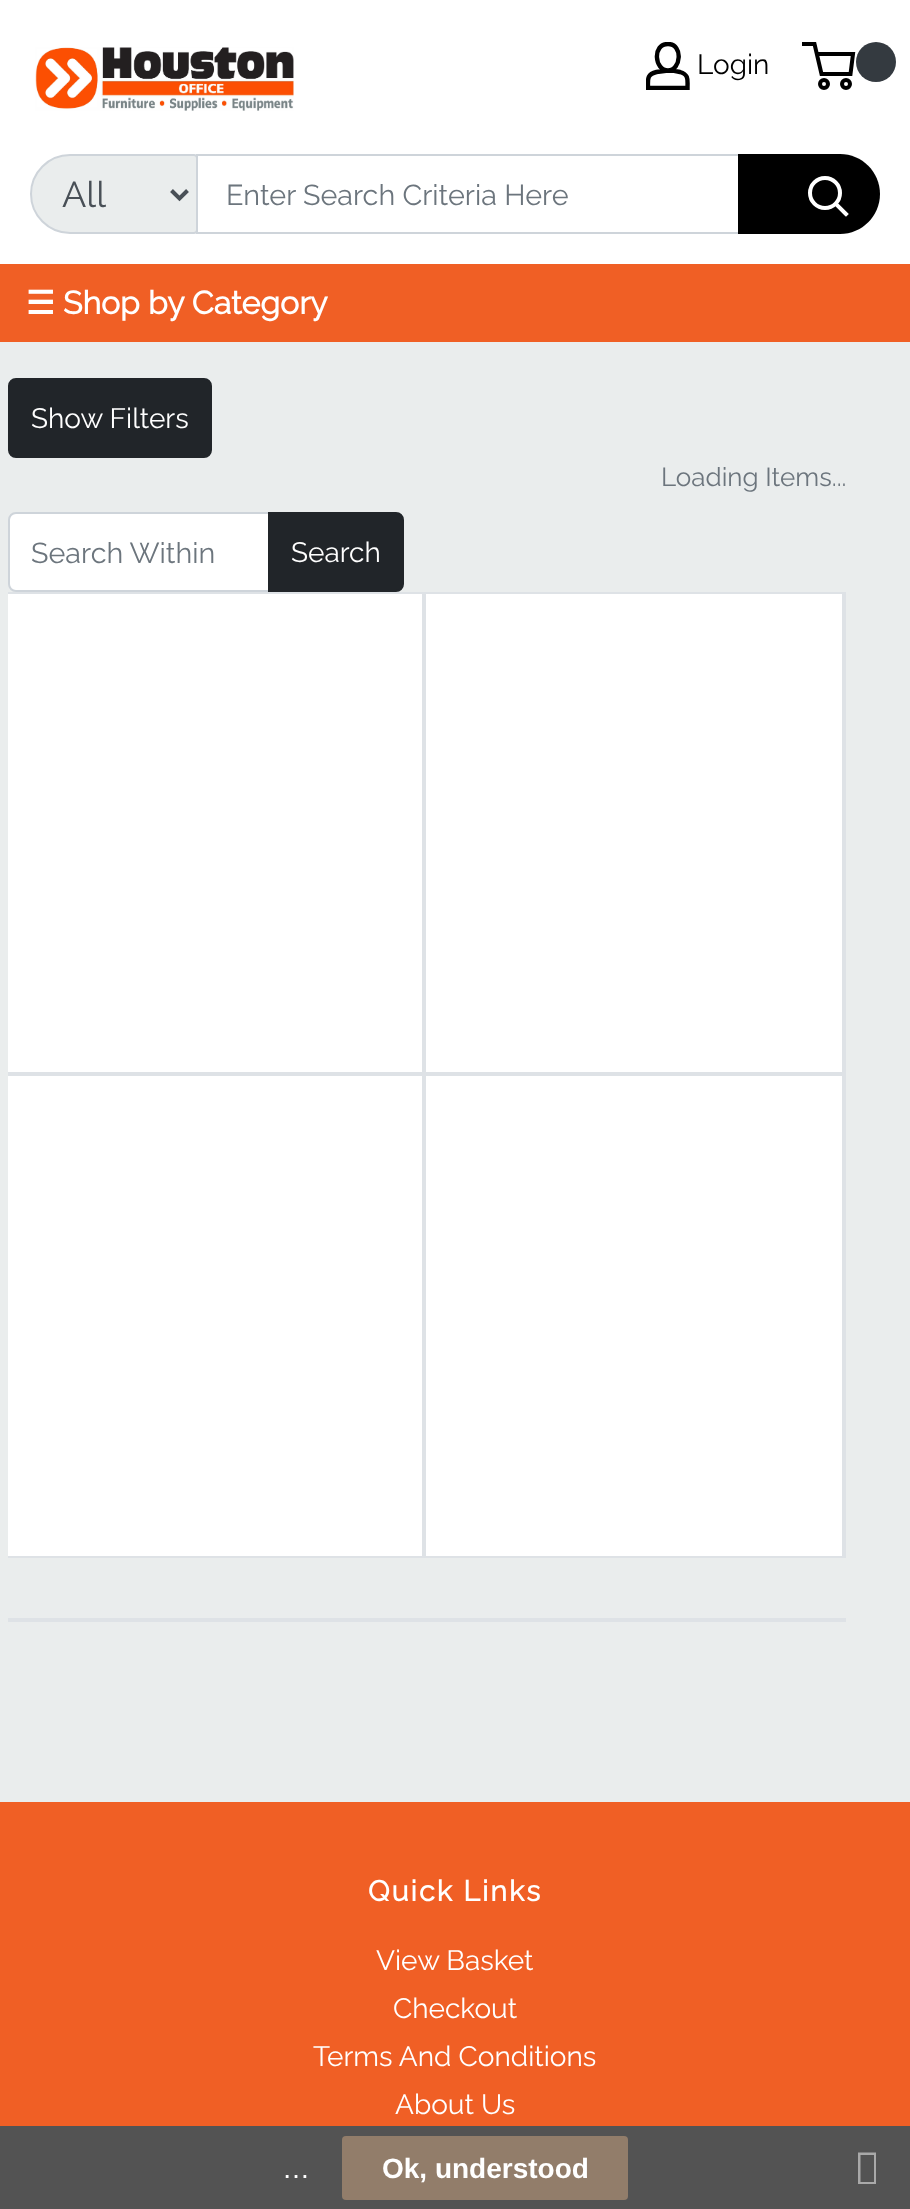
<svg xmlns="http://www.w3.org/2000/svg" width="910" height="2209">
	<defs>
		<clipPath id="clip1"><rect x="646" y="42" width="44" height="48" /></clipPath>
	</defs>
	<rect width="100%" height="100%" fill="#EAEDED" />
	<rect x="0" y="0" width="910" height="264" fill="#FFFFFF" />
	<g clip-path="url(#clip1)">
		<path d="M668 70.5C672 70.5 676 71 680 72C689 74.5 687.5 80 687.5 88H648C648 79 646.5 74.5 656.5 72ZM668 70.5C654.5 70.5 652 44 668 44C683.5 44 681 70.5 668 70.5Z" fill="none" stroke="#000000" stroke-width="4.4" />
	</g>
	<text x="697" y="74" font-family="Raleway" font-size="28" font-weight="100" fill="#000000">Login</text>
	<path d="M816.5 54H853L850.5 74H821.5L814.5 44H802" fill="none" stroke="#000000" stroke-width="4" />
	<circle cx="876" cy="62" r="20" fill="#343A40" />
	<circle cx="824" cy="84" r="4" fill="none" stroke="#000000" stroke-width="4" />
	<circle cx="846" cy="84" r="4" fill="none" stroke="#000000" stroke-width="4" />
	<image x="35" y="47" width="259" height="64" href="assets/img1.png" />
	<path d="M70 155H194C195.5 155 197 156.5 197 158V230C197 231.5 195.5 233 194 233H70C48.5 233 31 215.5 31 194C31 172.5 48.5 155 70 155Z" fill="#EAEDED" stroke="#CED4DA" stroke-width="2" />
	<path d="M171.5 190.5L179.5 198.5L187.5 190.5" fill="none" stroke="#495057" stroke-width="4" />
	<text x="62" y="207" font-family="Raleway" font-size="36" font-weight="100" fill="#495057">All</text>
	<rect x="197" y="155" width="542" height="78" fill="none" stroke="#CED4DA" stroke-width="2" />
	<text x="226" y="205" font-family="Raleway" font-size="28.75" font-weight="100" fill="#6C757D">Enter Search Criteria Here</text>
	<path d="M738 154H840C862 154 880 172 880 194C880 216 862 234 840 234H738Z" fill="#000000" />
	<path d="M846 214L836 204" fill="none" stroke="#FFFFFF" stroke-width="4" stroke-linecap="square" />
	<circle cx="825" cy="193" r="15" fill="none" stroke="#FFFFFF" stroke-width="4" />
	<rect x="0" y="264" width="910" height="78" fill="#F05F25" />
	<text x="26" y="314" font-family="DejaVu Sans" font-size="32" font-weight="700" fill="#FFFFFF">☰</text>
	<text x="63" y="314" font-family="Raleway" font-size="32" font-weight="700" fill="#FFFFFF">Shop by Category</text>
	<rect x="9" y="379" width="202" height="78" rx="7" fill="#212529" stroke="#212529" stroke-width="2" />
	<text x="31" y="428" font-family="Raleway" font-size="28" font-weight="100" fill="#FFFFFF">Show Filters</text>
	<text x="661" y="486" font-family="Raleway" font-size="26" font-weight="100" fill="#6C757D">Loading Items...</text>
	<path d="M15 514H268V590H15C12 590 10 588 10 585V519C10 516 12 514 15 514Z" fill="#FFFFFF" />
	<path d="M16 513H269V591H16C12 591 9 588 9 584V520C9 516 12 513 16 513Z" fill="none" stroke="#CED4DA" stroke-width="2" />
	<text x="31" y="563" font-family="Raleway" font-size="28.75" font-weight="100" fill="#6C757D">Search Within</text>
	<path d="M269 513H396C400 513 403 516 403 520V584C403 588 400 591 396 591H269Z" fill="#212529" stroke="#212529" stroke-width="2" />
	<text x="291" y="562" font-family="Raleway" font-size="28" font-weight="100" fill="#FFFFFF">Search</text>
	<rect x="8" y="594" width="834" height="962" fill="#FFFFFF" />
	<rect x="8" y="592" width="838" height="2" fill="#DEE2E6" />
	<rect x="422" y="592" width="4" height="482" fill="#DEE2E6" />
	<rect x="8" y="1072" width="418" height="4" fill="#DEE2E6" />
	<rect x="842" y="592" width="4" height="482" fill="#DEE2E6" />
	<rect x="426" y="1072" width="420" height="4" fill="#DEE2E6" />
	<rect x="422" y="1074" width="4" height="484" fill="#DEE2E6" />
	<rect x="8" y="1556" width="418" height="2" fill="#DEE2E6" />
	<rect x="842" y="1074" width="4" height="484" fill="#DEE2E6" />
	<rect x="426" y="1556" width="420" height="2" fill="#DEE2E6" />
	<rect x="8" y="1618" width="838" height="4" fill="#DEE2E6" />
	<rect x="0" y="1802" width="910" height="324" fill="#F05F25" />
	<text x="368" y="1901" font-family="Raleway" font-size="28.75" font-weight="700" letter-spacing="2" fill="#FFFFFF">Quick Links</text>
	<g font-family="Raleway" font-size="28" font-weight="100" fill="#FFFFFF">
		<text x="376" y="1970">View Basket</text>
		<text x="393" y="2018">Checkout</text>
		<text x="313" y="2066">Terms And Conditions</text>
		<text x="395" y="2114">About Us</text>
	</g>
	<rect x="0" y="2126" width="910" height="83" fill="#535353" />
	<text x="282" y="2178" font-family="Liberation Sans" font-size="28" fill="#FFFFFF">…</text>
	<rect x="342" y="2136" width="286" height="64" rx="4" fill="#927D6A" />
	<text x="382" y="2178" font-family="Liberation Sans" font-size="28" font-weight="700" fill="#FFFFFF">Ok, understood</text>
	<path d="M858 2184V2152.5H876V2184ZM860.5 2182H874V2155H860.5Z" fill="#A9A9A9" />
</svg>
